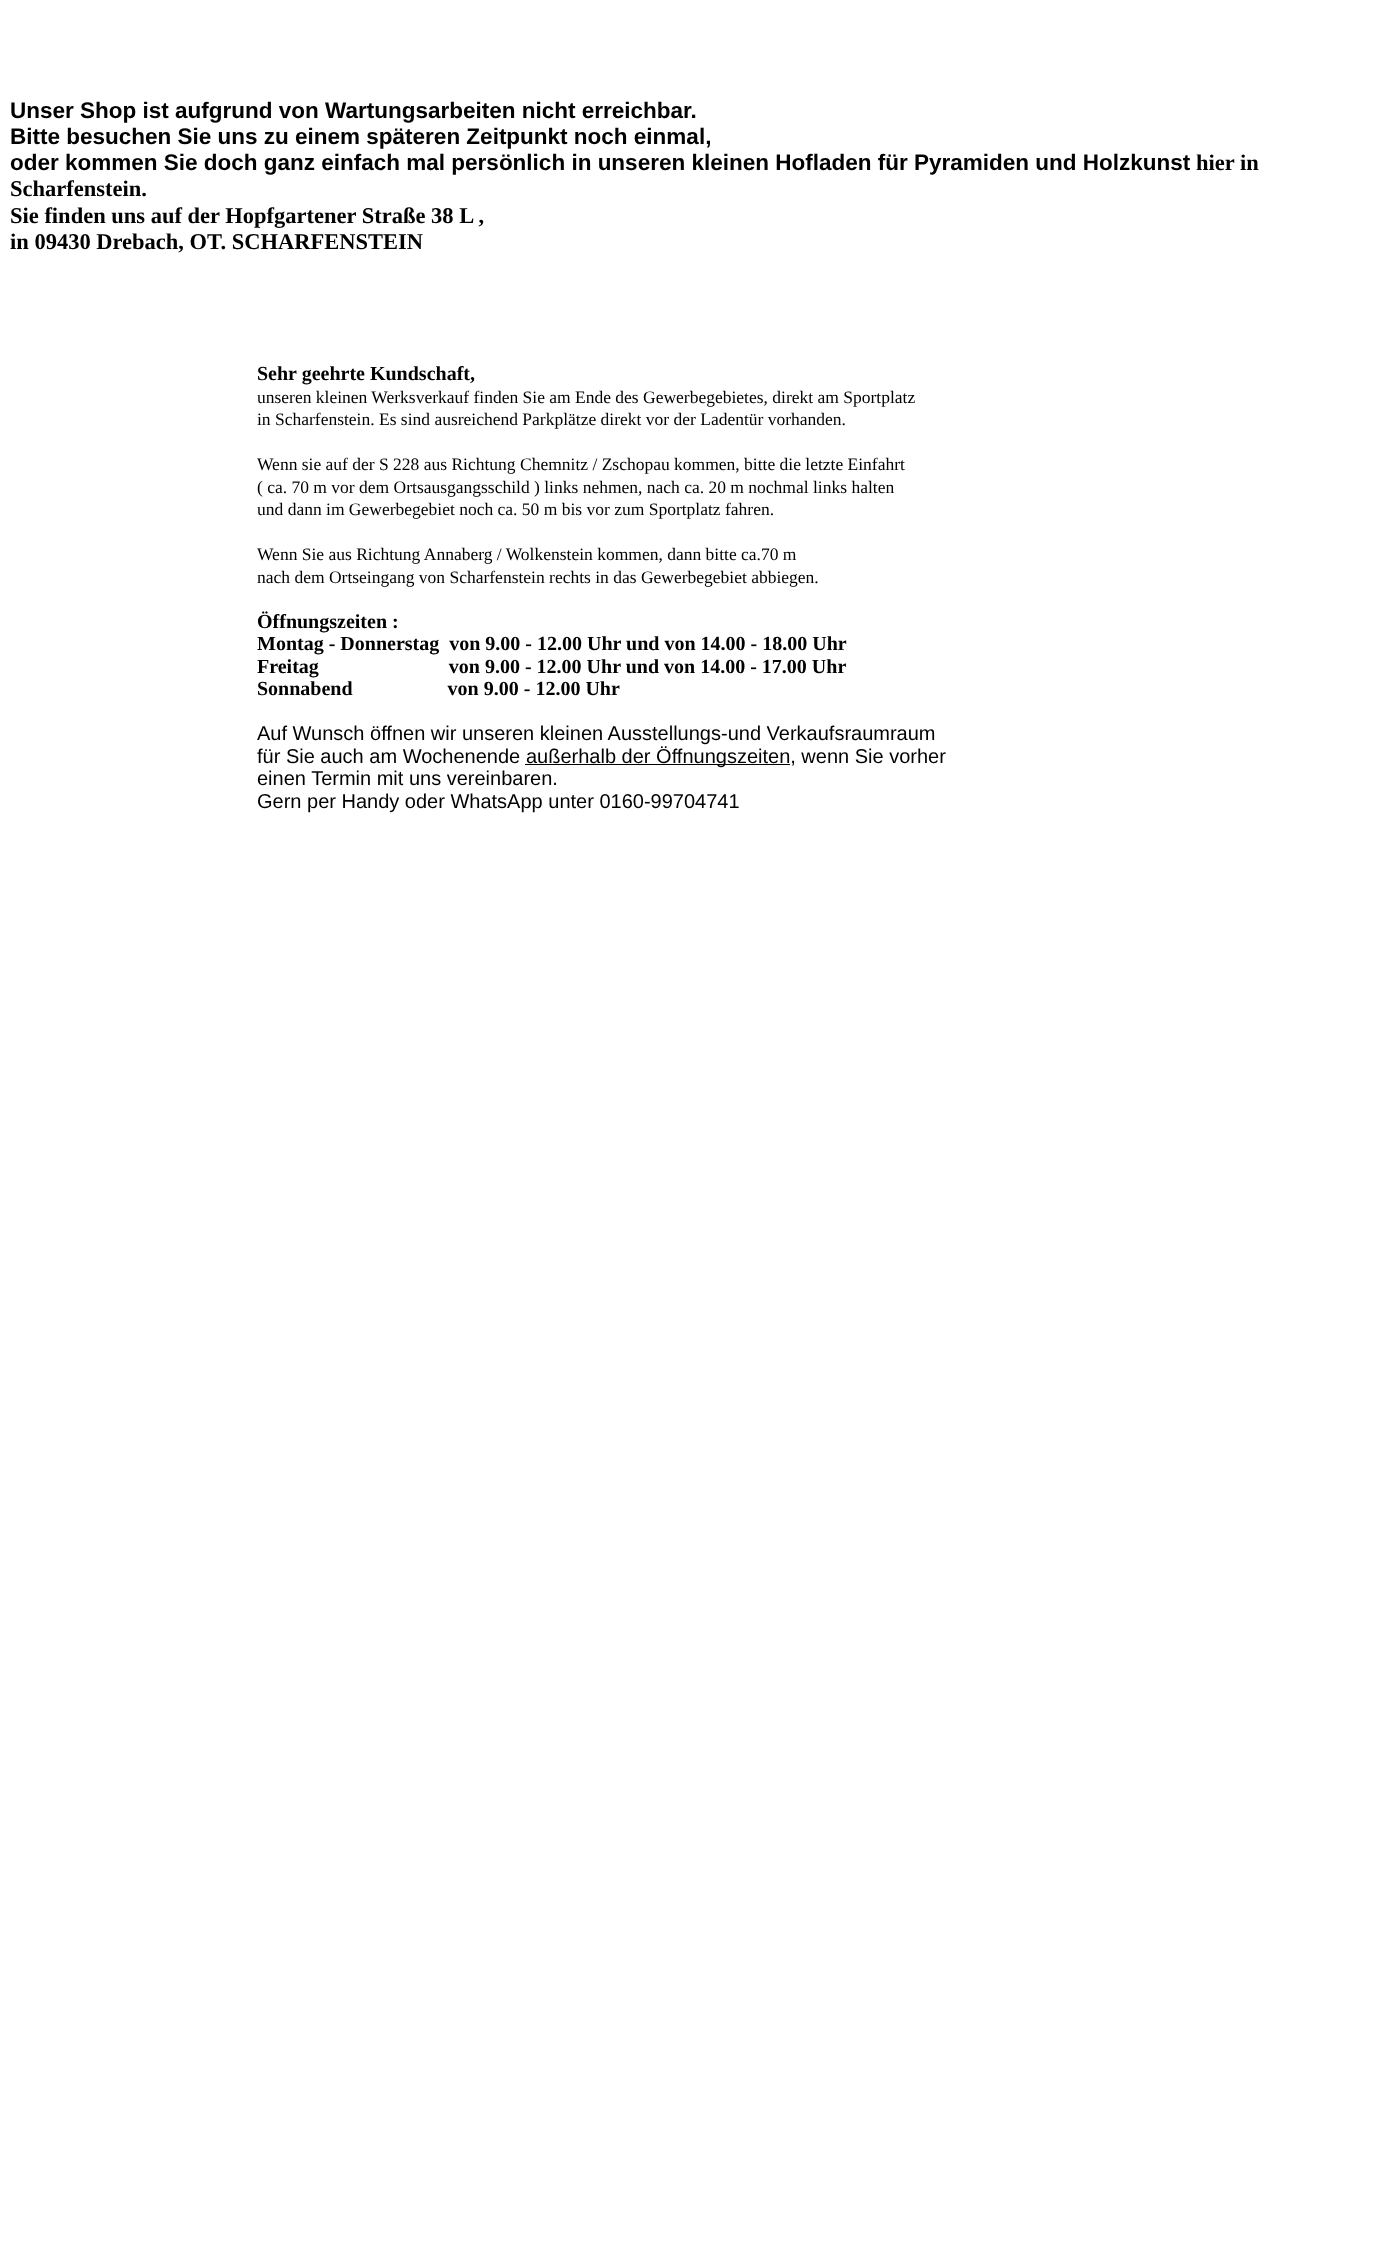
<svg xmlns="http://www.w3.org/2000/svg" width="1381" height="2242">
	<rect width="100%" height="100%" fill="#FFFFFF" />
	<g font-family="Liberation Sans" font-size="22.5" font-weight="700" fill="#000000">
		<text x="10" y="118">Unser Shop ist aufgrund von Wartungsarbeiten nicht erreichbar.</text>
		<text x="10" y="144">Bitte besuchen Sie uns zu einem späteren Zeitpunkt noch einmal,</text>
		<text x="10" y="170">oder kommen Sie doch ganz einfach mal persönlich in unseren kleinen Hofladen für Pyramiden und Holzkunst</text>
	</g>
	<g font-family="Liberation Serif" font-size="22.5" font-weight="700" fill="#000000">
		<text x="1196" y="170">hier in</text>
		<text x="10" y="196">Scharfenstein.</text>
		<text x="10" y="223">Sie finden uns auf der Hopfgartener Straße 38 L ,</text>
		<text x="10" y="249">in 09430 Drebach, OT. SCHARFENSTEIN</text>
	</g>
	<text x="257" y="380" font-family="Liberation Serif" font-size="20" font-weight="700" fill="#000000">Sehr geehrte Kundschaft,</text>
	<g font-family="Liberation Serif" font-size="17.5" fill="#000000">
		<text x="257" y="403">unseren kleinen Werksverkauf finden Sie am Ende des Gewerbegebietes, direkt am Sportplatz</text>
		<text x="257" y="425">in Scharfenstein. Es sind ausreichend Parkplätze direkt vor der Ladentür vorhanden.</text>
		<text x="257" y="470">Wenn sie auf der S 228 aus Richtung Chemnitz / Zschopau kommen, bitte die letzte Einfahrt</text>
		<text x="257" y="493">( ca. 70 m vor dem Ortsausgangsschild ) links nehmen, nach ca. 20 m nochmal links halten</text>
		<text x="257" y="515">und dann im Gewerbegebiet noch ca. 50 m bis vor zum Sportplatz fahren.</text>
		<text x="257" y="560">Wenn Sie aus Richtung Annaberg / Wolkenstein kommen, dann bitte ca.70 m</text>
		<text x="257" y="583">nach dem Ortseingang von Scharfenstein rechts in das Gewerbegebiet abbiegen.</text>
	</g>
	<g font-family="Liberation Serif" font-size="20" font-weight="700" fill="#000000">
		<text x="257" y="628">Öffnungszeiten :</text>
		<text x="257" y="650" xml:space="preserve">Montag - Donnerstag  von 9.00 - 12.00 Uhr und von 14.00 - 18.00 Uhr</text>
		<text x="257" y="673" xml:space="preserve">Freitag                          von 9.00 - 12.00 Uhr und von 14.00 - 17.00 Uhr</text>
		<text x="257" y="695" xml:space="preserve">Sonnabend                   von 9.00 - 12.00 Uhr</text>
	</g>
	<g font-family="Liberation Sans" font-size="20" fill="#000000">
		<text x="257" y="740">Auf Wunsch öffnen wir unseren kleinen Ausstellungs-und Verkaufsraumraum</text>
		<text x="257" y="763">für Sie auch am Wochenende</text>
	</g>
	<rect x="525" y="764" width="265" height="1" fill="#000000" />
	<g font-family="Liberation Sans" font-size="20" fill="#000000">
		<text x="526" y="763">außerhalb der Öffnungszeiten, wenn Sie vorher</text>
		<text x="257" y="785">einen Termin mit uns vereinbaren.</text>
		<text x="257" y="808">Gern per Handy oder WhatsApp unter 0160-99704741</text>
	</g>
</svg>
